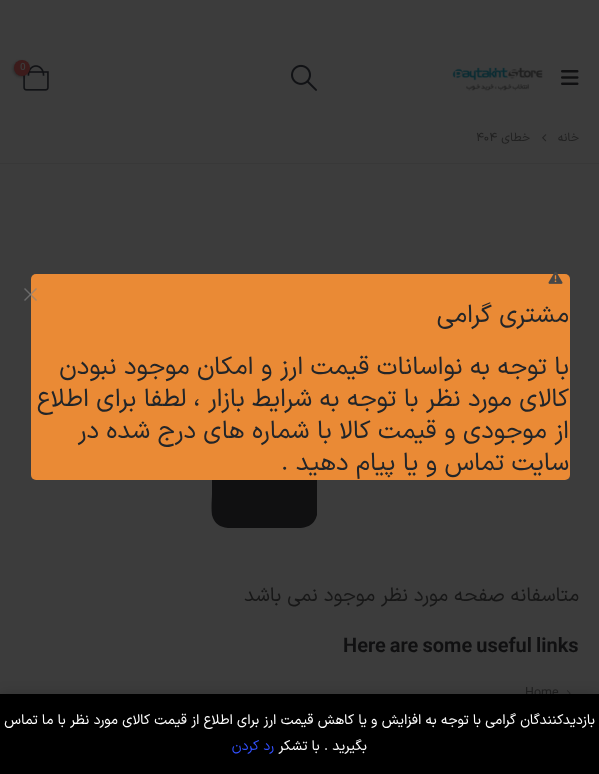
<svg xmlns="http://www.w3.org/2000/svg" width="599" height="774">
	<rect width="100%" height="100%" fill="#3C3C3C" />
	<image x="561" y="70" width="18" height="15" href="assets/img1.png" />
	<image x="452" y="67" width="91" height="24" href="assets/img2.png" />
	<image x="291" y="64" width="26" height="27" href="assets/img3.png" />
	<image x="23" y="65" width="26" height="26" href="assets/img4.png" />
	<rect x="13" y="61" width="16" height="16" rx="8" fill="#090909" fill-opacity="0.3" filter="blur(1px)" />
	<circle cx="22" cy="68" r="8" fill="#3C1B1B" />
	<text x="20" y="70" font-family="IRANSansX" font-size="10" font-weight="600" fill="#3C3C3C">0</text>
	<rect x="0" y="163" width="599" height="1" fill="#383838" />
	<text x="579" y="141" font-family="IRANSansX" font-size="12" direction="rtl" fill="#212121">خانه</text>
	<image x="542" y="134" width="5" height="8" href="assets/img5.png" />
	<text x="530" y="141" font-family="IRANSansX" font-size="12" direction="rtl" fill="#212121">خطای</text>
	<text x="476" y="141" font-family="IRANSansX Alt" font-size="12" fill="#212121">404</text>
	<path d="M212 406C212 398 218 391 226 389L273 388V418C273 431 275 432 288 432H317V515C313 530 300 528 288 528H241C229 528 216 530 212 515C211 508 212 498 212 494ZM317 424H282H317H282V388Z" fill="#101011" />
	<rect x="31" y="274" width="539" height="206" rx="5" fill="#EA8A35" />
	<path d="M25 288L37 300L36 301L24 289Z" fill="#838383" fill-opacity="0.65" />
	<path d="M36 288L37 289L25 301L24 300Z" fill="#838383" fill-opacity="0.65" />
	<image x="548" y="272" width="15" height="12" href="assets/img6.png" />
	<g font-family="IRANSansX" font-size="25" direction="rtl" fill="#222529">
		<text x="569" y="322">مشتری گرامی</text>
		<text x="569" y="374">با توجه به نواسانات قیمت ارز و امکان موجود نبودن</text>
		<text x="569" y="406">کالای مورد نظر با توجه به شرایط بازار ، لطفا برای اطلاع</text>
		<text x="569" y="438">از موجودی و قیمت کالا با شماره های درج شده در</text>
		<text x="569" y="470">سایت تماس و یا پیام دهید .</text>
	</g>
	<text x="579" y="601" font-family="IRANSansX" font-size="19.6" direction="rtl" fill="#171717">متاسفانه صفحه مورد نظر موجود نمی باشد</text>
	<text x="343" y="652" font-family="IRANSansX" font-size="20" font-weight="700" fill="#101011">Here are some useful links</text>
	<image x="567" y="690" width="4" height="4" href="assets/img7.png" />
	<text x="525" y="696" font-family="IRANSansX" font-size="12.5" fill="#212121">Home</text>
	<rect x="0" y="695" width="599" height="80" fill="#000000" fill-opacity="0.2" filter="blur(7px)" />
	<rect x="0" y="694" width="599" height="80" fill="#000000" />
	<g font-family="IRANSansX" font-size="14" direction="rtl" fill="#FFFFFF">
		<text x="595" y="724">بازدیدکنندگان گرامی با توجه به افزایش و یا کاهش قیمت ارز برای اطلاع از قیمت کالای مورد نظر با ما تماس</text>
		<text x="367" y="750">بگیرید . با تشکر</text>
	</g>
	<text x="274" y="750" font-family="IRANSansX" font-size="14" direction="rtl" fill="#3250FF">رد کردن</text>
</svg>
